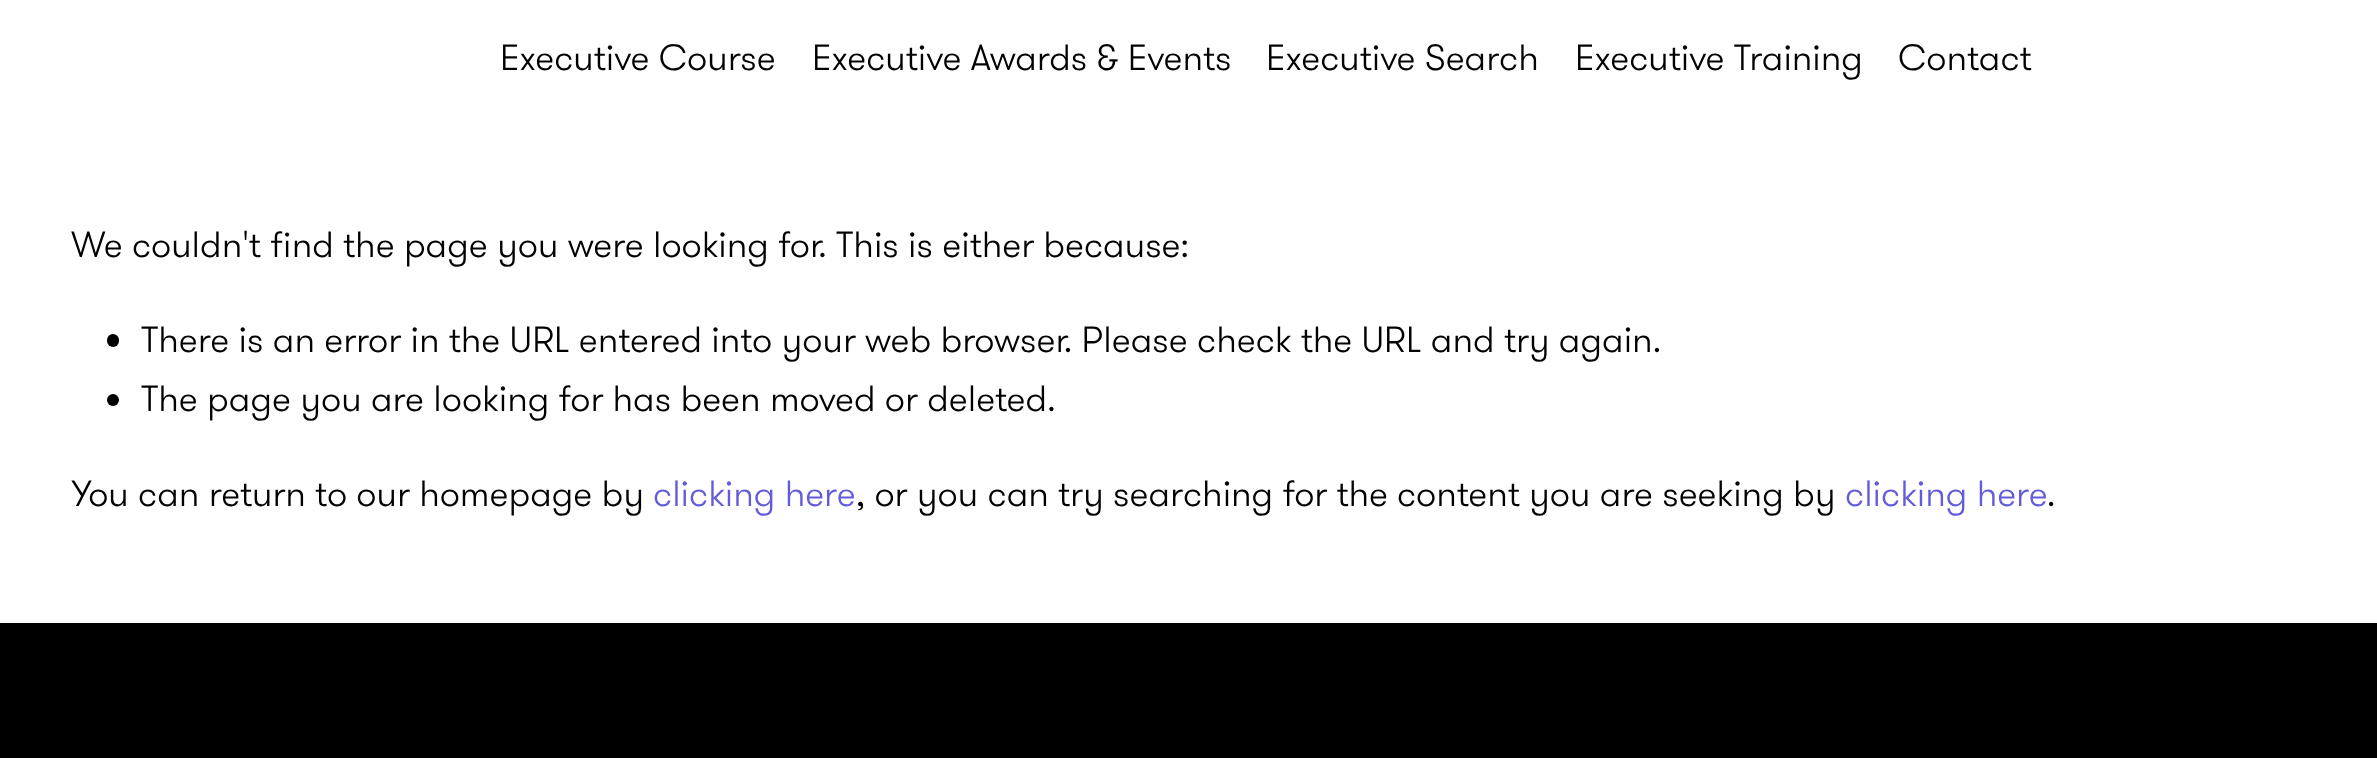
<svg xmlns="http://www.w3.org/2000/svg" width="2377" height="758">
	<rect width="100%" height="100%" fill="#FFFFFF" />
	<g font-family="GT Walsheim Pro" font-size="36.55" font-weight="300" fill="#000000">
		<text x="500" y="70">Executive Course</text>
		<text x="812" y="70">Executive Awards &amp; Events</text>
		<text x="1266" y="70">Executive Search</text>
		<text x="1575" y="70">Executive Training</text>
		<text x="1898" y="70">Contact</text>
		<text x="71" y="257">We couldn't find the page you were looking for. This is either because:</text>
	</g>
	<rect x="107" y="334" width="12" height="13" rx="6" fill="#000000" />
	<text x="141" y="352" font-family="GT Walsheim Pro" font-size="36.55" font-weight="300" fill="#000000">There is an error in the URL entered into your web browser. Please check the URL and try again.</text>
	<circle cx="113" cy="400" r="6" fill="#000000" />
	<g font-family="GT Walsheim Pro" font-size="36.55" font-weight="300" fill="#000000">
		<text x="141" y="411">The page you are looking for has been moved or deleted.</text>
		<text x="71" y="506">You can return to our homepage by</text>
	</g>
	<text x="653" y="506" font-family="GT Walsheim Pro" font-size="36.55" font-weight="300" fill="#625BDB">clicking here</text>
	<g font-family="GT Walsheim Pro" font-size="36.55" font-weight="300" fill="#000000">
		<text x="856" y="506">, or you can try searching for the</text>
		<text x="1397" y="506">content you are seeking by</text>
	</g>
	<text x="1845" y="506" font-family="GT Walsheim Pro" font-size="36.55" font-weight="300" fill="#625BDB">clicking here</text>
	<text x="2047" y="506" font-family="GT Walsheim Pro" font-size="36.55" font-weight="300" fill="#000000">.</text>
	<rect x="0" y="623" width="2377" height="135" fill="#000000" />
</svg>
